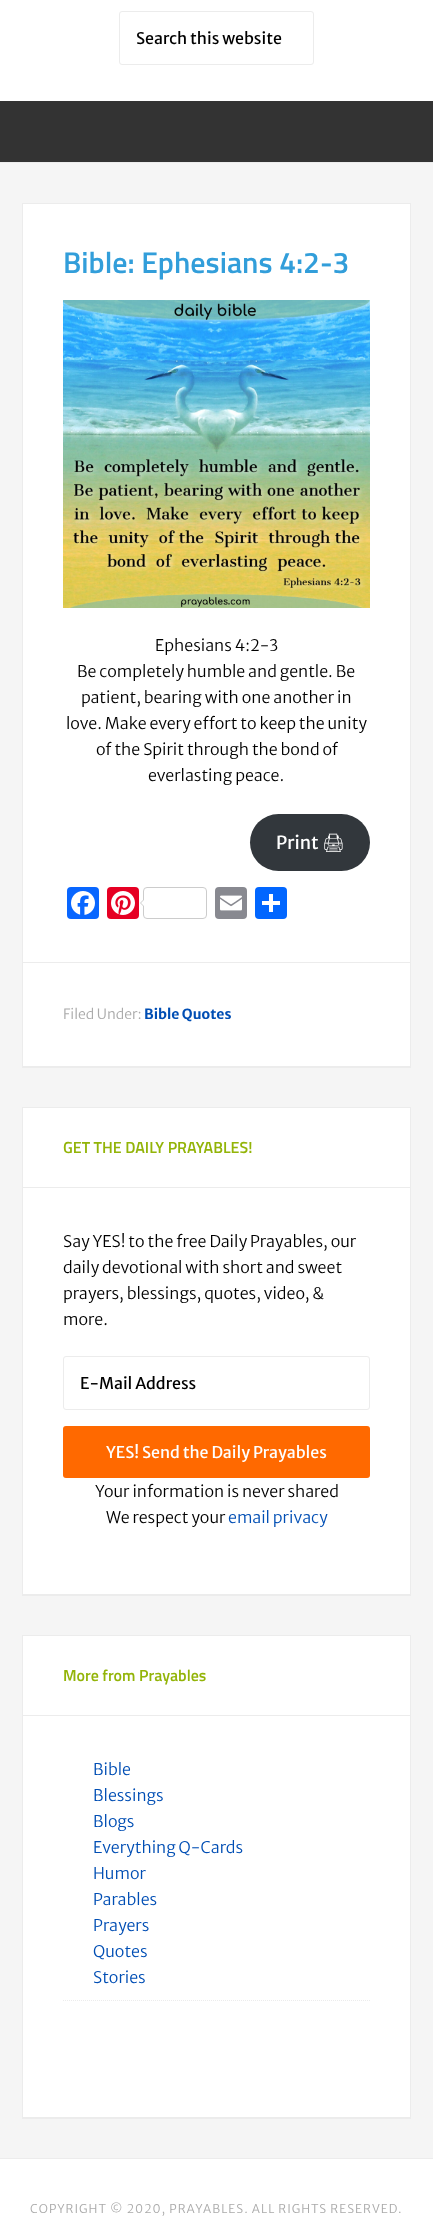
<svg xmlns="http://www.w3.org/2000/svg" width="433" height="2232">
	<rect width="100%" height="100%" fill="#FFFFFF" />
	<rect x="119.5" y="11.5" width="194" height="53" rx="2.5" fill="none" stroke="#ECECEC" />
	<text x="136" y="44" font-family="Merriweather Sans" font-size="16" fill="#000000">Search this website</text>
	<rect x="0" y="101" width="433" height="61" fill="#333333" />
	<rect x="0" y="163" width="433" height="1995" fill="#F5F5F5" />
	<rect x="0" y="162" width="433" height="1" fill="#ECECEC" />
	<rect x="22" y="1067" width="389" height="1" fill="#ECECEC" />
	<rect x="22.5" y="203.5" width="388" height="863" fill="#FFFFFF" stroke="#ECECEC" />
	<text x="63" y="273" font-family="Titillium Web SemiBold" font-size="30" font-weight="600" fill="#329EDA">Bible: Ephesians 4:2-3</text>
	<image x="63" y="300" width="307" height="308" href="assets/img1.png" />
	<g font-family="Merriweather Sans" font-size="16" font-weight="300" fill="#000000">
		<text x="155" y="651">Ephesians 4:2-3</text>
		<text x="77" y="677">Be completely humble and gentle. Be</text>
		<text x="81" y="703">patient, bearing with one another in</text>
		<text x="66" y="729">love. Make every effort to keep the unity</text>
		<text x="96" y="755">of the Spirit through the bond of</text>
		<text x="148" y="781">everlasting peace.</text>
	</g>
	<rect x="250" y="814" width="120" height="57" rx="28.5" fill="#32373C" />
	<text x="276" y="849" font-family="Merriweather Sans" font-size="18" fill="#FFFFFF">Print</text>
	<text x="322" y="849" font-family="Noto Emoji" font-size="18" fill="#FFFFFF">🖨</text>
	<rect x="67" y="887" width="32" height="32" rx="4" fill="#0866FF" />
	<image x="71" y="891" width="24" height="24" href="assets/img2.png" />
	<rect x="107" y="887" width="32" height="32" rx="4" fill="#E60023" />
	<image x="111" y="891" width="24" height="24" href="assets/img3.png" />
	<rect x="143.5" y="887.5" width="63" height="31" rx="3.5" fill="none" stroke="#CCCCCC" />
	<path d="M144 899V907L140 903Z" fill="#CCCCCC" />
	<path d="M145 899V907L141 903Z" fill="#FFFFFF" />
	<rect x="215" y="887" width="32" height="32" rx="4" fill="#888990" />
	<image x="220" y="895" width="22" height="16" href="assets/img4.png" />
	<rect x="255" y="887" width="32" height="32" rx="4" fill="#0166FF" />
	<rect x="269" y="894" width="4" height="18" fill="#FFFFFF" />
	<rect x="262" y="901" width="18" height="4" fill="#FFFFFF" />
	<rect x="23" y="962" width="387" height="1" fill="#ECECEC" />
	<text x="63" y="1019" font-family="Merriweather Sans" font-size="14" font-weight="300" fill="#AAAAAA">Filed Under:</text>
	<text x="144" y="1019" font-family="Merriweather Sans" font-size="14" font-weight="700" fill="#004EB4">Bible Quotes</text>
	<rect x="22" y="1595" width="389" height="1" fill="#ECECEC" />
	<rect x="22.5" y="1107.5" width="388" height="487" fill="#FFFFFF" stroke="#ECECEC" />
	<rect x="23" y="1187" width="387" height="1" fill="#ECECEC" />
	<text x="63" y="1153" font-family="Titillium Web SemiBold" font-size="16" font-weight="600" fill="#93B408">GET THE DAILY PRAYABLES!</text>
	<g font-family="Merriweather Sans" font-size="16" font-weight="300" fill="#000000">
		<text x="63" y="1247">Say YES! to the free Daily Prayables, our</text>
		<text x="63" y="1273">daily devotional with short and sweet</text>
		<text x="63" y="1299">prayers, blessings, quotes, video, &amp;</text>
		<text x="63" y="1325">more.</text>
	</g>
	<rect x="63.5" y="1356.5" width="306" height="53" rx="2.5" fill="none" stroke="#ECECEC" />
	<text x="80" y="1389" font-family="Merriweather Sans" font-size="16" fill="#000000">E-Mail Address</text>
	<rect x="63" y="1426" width="307" height="52" rx="3" fill="#FF6900" />
	<text x="106" y="1458" font-family="Merriweather Sans" font-size="16" fill="#FFFFFF">YES! Send the Daily Prayables</text>
	<g font-family="Merriweather Sans" font-size="16" font-weight="300" fill="#000000">
		<text x="95" y="1497">Your information is never shared</text>
		<text x="106" y="1523">We respect your</text>
	</g>
	<text x="228" y="1523" font-family="Merriweather Sans" font-size="16" font-weight="300" fill="#004EB4">email privacy</text>
	<rect x="22" y="2118" width="389" height="1" fill="#ECECEC" />
	<rect x="22.5" y="1635.5" width="388" height="482" fill="#FFFFFF" stroke="#ECECEC" />
	<rect x="23" y="1715" width="387" height="1" fill="#ECECEC" />
	<text x="63" y="1681" font-family="Titillium Web SemiBold" font-size="16" font-weight="600" fill="#93B408">More from Prayables</text>
	<path d="M63 2000.5H370" fill="none" stroke="#ECECEC" stroke-dasharray="1 1" />
	<g font-family="Merriweather Sans" font-size="16" font-weight="300" fill="#004EB4">
		<text x="93" y="1775">Bible</text>
		<text x="93" y="1801">Blessings</text>
		<text x="93" y="1827">Blogs</text>
		<text x="93" y="1853">Everything Q-Cards</text>
		<text x="93" y="1879">Humor</text>
		<text x="93" y="1905">Parables</text>
		<text x="93" y="1931">Prayers</text>
		<text x="93" y="1957">Quotes</text>
		<text x="93" y="1983">Stories</text>
	</g>
	<rect x="0" y="2158" width="433" height="1" fill="#ECECEC" />
	<text x="30" y="2213" font-family="Merriweather Sans" font-size="12" font-weight="300" letter-spacing="1" fill="#AAAAAA">COPYRIGHT © 2020, PRAYABLES. ALL RIGHTS RESERVED.</text>
</svg>
